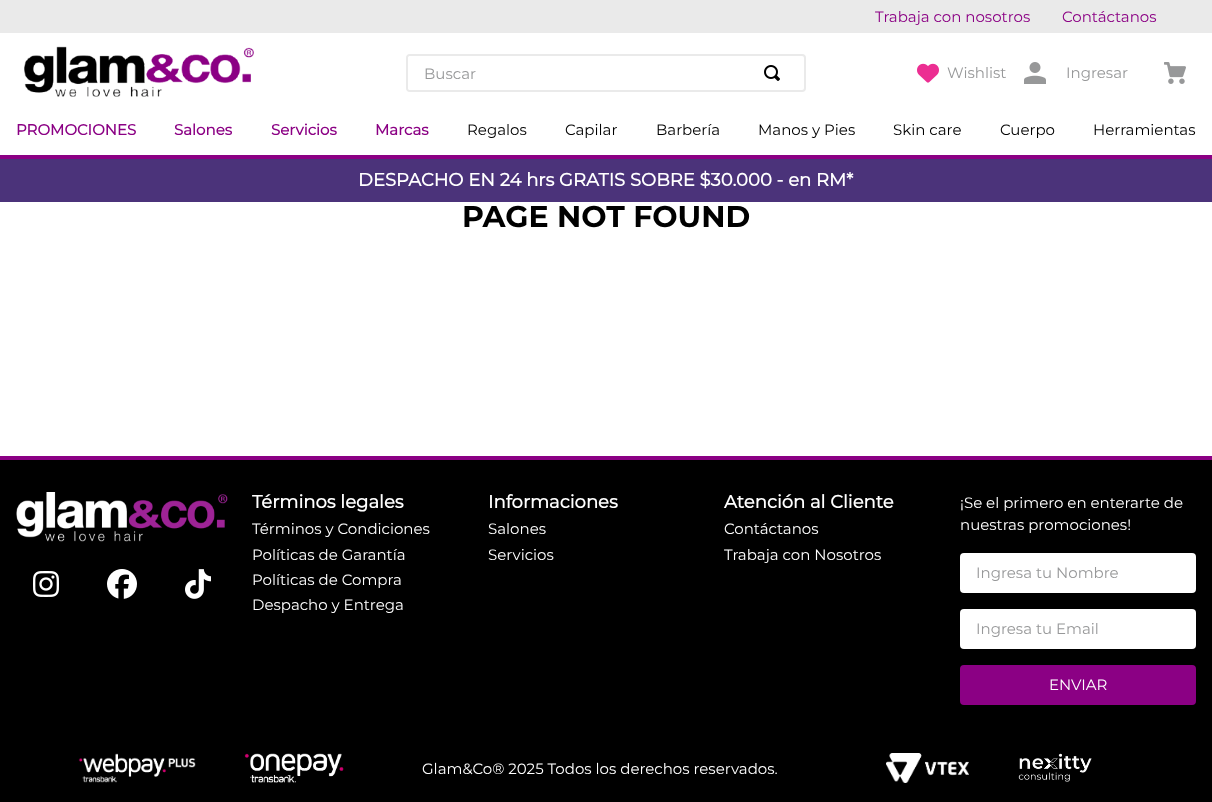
<svg xmlns="http://www.w3.org/2000/svg" width="1212" height="802">
	<rect width="100%" height="100%" fill="#FFFFFF" />
	<rect x="0" y="0" width="1212" height="33" fill="#EAEAEA" />
	<g font-family="Montserrat" font-size="15" fill="#8B0084">
		<text x="875" y="22">Trabaja con nosotros</text>
		<text x="1062" y="22">Contáctanos</text>
	</g>
	<image x="24" y="46" width="230" height="51" href="assets/img1.png" />
	<rect x="407" y="55" width="398" height="36" rx="3" fill="none" stroke="#EAEAEA" stroke-width="2" />
	<path d="M410 56H751C751.5 56 752 56.5 752 57V89C752 89.5 751.5 90 751 90H410C409 90 408 89 408 88V58C408 57 409 56 410 56Z" fill="#FFFFFF" />
	<text x="424" y="79" font-family="Montserrat" font-size="15" fill="#979899">Buscar</text>
	<image x="764" y="65" width="16" height="16" href="assets/img2.png" />
	<image x="917" y="63" width="22" height="20" href="assets/img3.png" />
	<text x="947" y="78" font-family="Montserrat" font-size="15" fill="#979899">Wishlist</text>
	<image x="1024" y="62" width="22" height="22" href="assets/img4.png" />
	<text x="1066" y="78" font-family="Montserrat" font-size="15" fill="#979899">Ingresar</text>
	<image x="1164" y="62" width="22" height="22" href="assets/img5.png" />
	<rect x="0" y="155" width="1212" height="4" fill="#8B0084" />
	<g font-family="'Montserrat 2'" font-size="15" font-weight="700" fill="#8B0084">
		<text x="16" y="135">PROMOCIONES</text>
		<text x="174" y="135">Salones</text>
		<text x="271" y="135">Servicios</text>
		<text x="375" y="135">Marcas</text>
	</g>
	<g font-family="Montserrat" font-size="15" fill="#000000">
		<text x="467" y="135">Regalos</text>
		<text x="565" y="135">Capilar</text>
		<text x="656" y="135">Barbería</text>
		<text x="758" y="135">Manos y Pies</text>
		<text x="893" y="135">Skin care</text>
		<text x="1000" y="135">Cuerpo</text>
		<text x="1093" y="135">Herramientas</text>
	</g>
	<rect x="0" y="159" width="1212" height="43" fill="#4B337A" />
	<text x="358" y="186" font-family="'Montserrat 2'" font-size="18.05" font-weight="700" fill="#FFFFFF">DESPACHO EN 24 hrs GRATIS SOBRE $30.000 - en RM*</text>
	<text x="462" y="227" font-family="Montserrat" font-size="30" font-weight="700" fill="#000000">PAGE NOT FOUND</text>
	<rect x="0" y="460" width="1212" height="342" fill="#000000" />
	<rect x="0" y="456" width="1212" height="4" fill="#8B0084" />
	<image x="16" y="492" width="212" height="50" href="assets/img6.png" />
	<image x="33" y="571" width="26" height="26" href="assets/img7.png" />
	<image x="107" y="569" width="30" height="30" href="assets/img8.png" />
	<image x="185" y="569" width="26" height="30" href="assets/img9.png" />
	<text x="252" y="508" font-family="'Montserrat 2'" font-size="18.05" font-weight="700" fill="#FFFFFF">Términos legales</text>
	<g font-family="Montserrat" font-size="15" fill="#FFFFFF">
		<text x="252" y="534">Términos y Condiciones</text>
		<text x="252" y="560">Políticas de Garantía</text>
		<text x="252" y="585">Políticas de Compra</text>
		<text x="252" y="610">Despacho y Entrega</text>
	</g>
	<text x="488" y="508" font-family="'Montserrat 2'" font-size="18.05" font-weight="700" fill="#FFFFFF">Informaciones</text>
	<g font-family="Montserrat" font-size="15" fill="#FFFFFF">
		<text x="488" y="534">Salones</text>
		<text x="488" y="560">Servicios</text>
	</g>
	<text x="724" y="508" font-family="'Montserrat 2'" font-size="18.05" font-weight="700" fill="#FFFFFF">Atención al Cliente</text>
	<g font-family="Montserrat" font-size="15" fill="#FFFFFF">
		<text x="724" y="534">Contáctanos</text>
		<text x="724" y="560">Trabaja con Nosotros</text>
		<text x="960" y="508">¡Se el primero en enterarte de</text>
		<text x="960" y="530">nuestras promociones!</text>
	</g>
	<rect x="960" y="553" width="236" height="40" rx="4" fill="#FFFFFF" />
	<text x="976" y="578" font-family="Montserrat" font-size="15" fill="#979899">Ingresa tu Nombre</text>
	<rect x="960" y="609" width="236" height="40" rx="4" fill="#FFFFFF" />
	<text x="976" y="634" font-family="Montserrat" font-size="15" fill="#979899">Ingresa tu Email</text>
	<rect x="961" y="666" width="234" height="38" rx="3" fill="#8B0084" stroke="#8B0084" stroke-width="2" />
	<text x="1049" y="690" font-family="Montserrat" font-size="15" fill="#FFFFFF">ENVIAR</text>
	<image x="78" y="753" width="118" height="30" href="assets/img10.png" />
	<image x="244" y="753" width="100" height="30" href="assets/img11.png" />
	<text x="422" y="774" font-family="Montserrat" font-size="15" fill="#FFFFFF">Glam&amp;Co® 2025 Todos los derechos reservados.</text>
	<image x="886" y="753" width="83" height="30" href="assets/img12.png" />
	<image x="1018" y="753" width="74" height="29" href="assets/img13.png" />
</svg>
